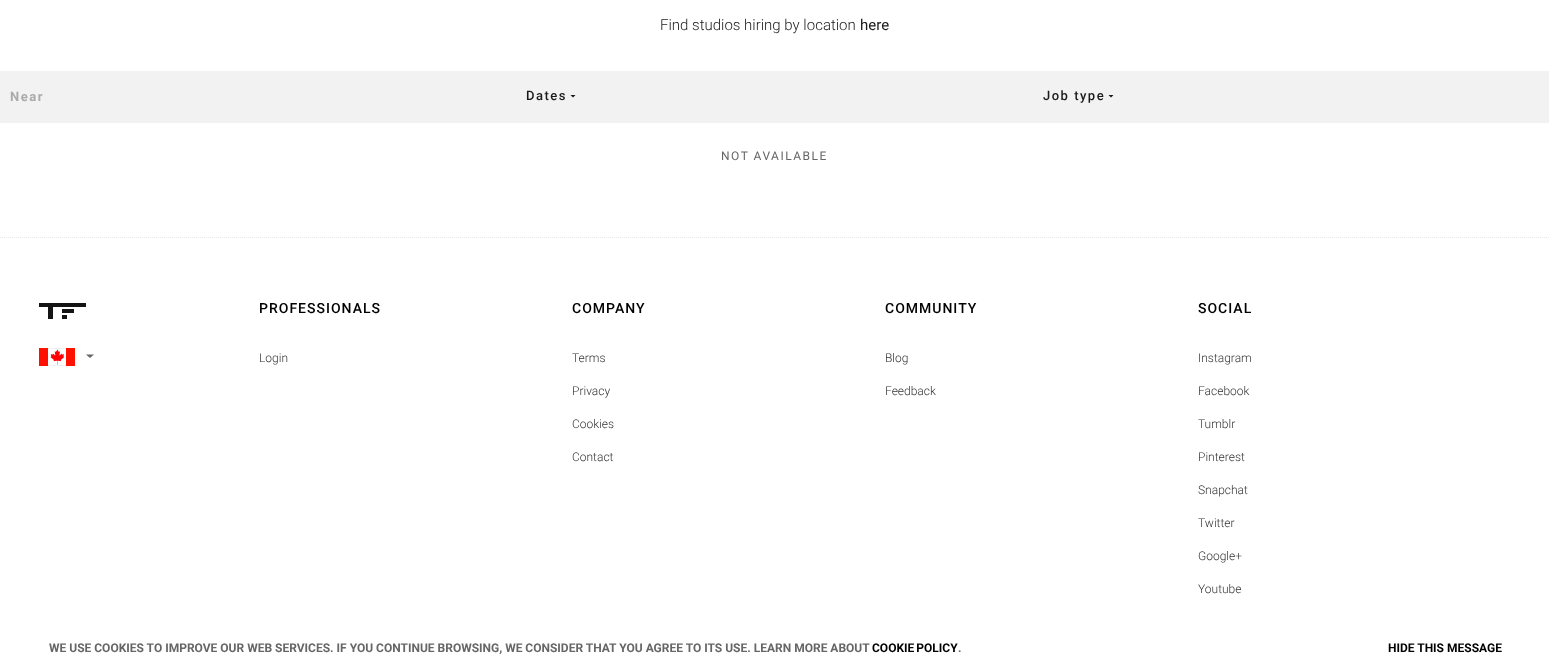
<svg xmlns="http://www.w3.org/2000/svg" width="1549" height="672">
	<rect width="100%" height="100%" fill="#FFFFFF" />
	<text x="660" y="30" font-family="Roboto" font-size="15" font-weight="300" fill="#212121">Find studios hiring by location</text>
	<text x="860" y="30" font-family="Roboto" font-size="15" fill="#1A1A1A">here</text>
	<rect x="0" y="71" width="1549" height="52" fill="#F2F2F2" />
	<text x="10" y="101" font-family="Roboto" font-size="13" font-weight="700" letter-spacing="1.5" fill="#AAAAAA">Near</text>
	<text x="526" y="100" font-family="Roboto" font-size="13" font-weight="500" letter-spacing="1.5" fill="#1A1A1A">Dates</text>
	<path d="M570.5 95H575.5L573 97.5Z" fill="#181818" />
	<text x="1043" y="100" font-family="Roboto" font-size="13" font-weight="500" letter-spacing="1.5" fill="#1A1A1A">Job type</text>
	<path d="M1108.5 95H1113.5L1111 97.5Z" fill="#181818" />
	<text x="721" y="160" font-family="Roboto" font-size="12" letter-spacing="1.5" fill="#666666">NOT AVAILABLE</text>
	<path d="M0 237.5H1549" fill="none" stroke="#E6E6E6" stroke-dasharray="1 1" />
	<rect x="62" y="309" width="12" height="4" fill="#141414" />
	<rect x="62" y="315" width="5" height="4" fill="#141414" />
	<path d="M39 303V307H48V319H53V307H86V303Z" fill="#141414" />
	<image x="39" y="348" width="36" height="18" href="assets/img1.png" />
	<path d="M86 354.5H94L90 358Z" fill="#666666" />
	<text x="259" y="313" font-family="Roboto" font-size="14" font-weight="500" letter-spacing="1" fill="#000000">PROFESSIONALS</text>
	<text x="259" y="362" font-family="Roboto" font-size="12" font-weight="300" fill="#333333">Login</text>
	<text x="572" y="313" font-family="Roboto" font-size="14" font-weight="500" letter-spacing="1" fill="#000000">COMPANY</text>
	<g font-family="Roboto" font-size="12" font-weight="300" fill="#333333">
		<text x="572" y="362">Terms</text>
		<text x="572" y="395">Privacy</text>
		<text x="572" y="428">Cookies</text>
		<text x="572" y="461">Contact</text>
	</g>
	<text x="885" y="313" font-family="Roboto" font-size="14" font-weight="500" letter-spacing="1" fill="#000000">COMMUNITY</text>
	<g font-family="Roboto" font-size="12" font-weight="300" fill="#333333">
		<text x="885" y="362">Blog</text>
		<text x="885" y="395">Feedback</text>
	</g>
	<text x="1198" y="313" font-family="Roboto" font-size="14" font-weight="500" letter-spacing="1" fill="#000000">SOCIAL</text>
	<g font-family="Roboto" font-size="12" font-weight="300" fill="#333333">
		<text x="1198" y="362">Instagram</text>
		<text x="1198" y="395">Facebook</text>
		<text x="1198" y="428">Tumblr</text>
		<text x="1198" y="461">Pinterest</text>
		<text x="1198" y="494">Snapchat</text>
		<text x="1198" y="527">Twitter</text>
		<text x="1198" y="560">Google+</text>
		<text x="1198" y="593">Youtube</text>
	</g>
	<text x="49" y="652" font-family="Roboto" font-size="12" font-weight="700" fill="#666666">WE USE COOKIES TO IMPROVE OUR WEB SERVICES. IF YOU CONTINUE BROWSING, WE CONSIDER THAT YOU AGREE TO ITS USE. LEARN MORE ABOUT</text>
	<text x="872" y="652" word-spacing="-1" font-family="Roboto" font-size="12" font-weight="700" fill="#000000">COOKIE POLICY</text>
	<text x="958" y="652" font-family="Roboto" font-size="12" font-weight="700" fill="#666666">.</text>
	<text x="1388" y="652" font-family="Roboto" font-size="12" font-weight="700" fill="#000000">HIDE THIS MESSAGE</text>
</svg>
